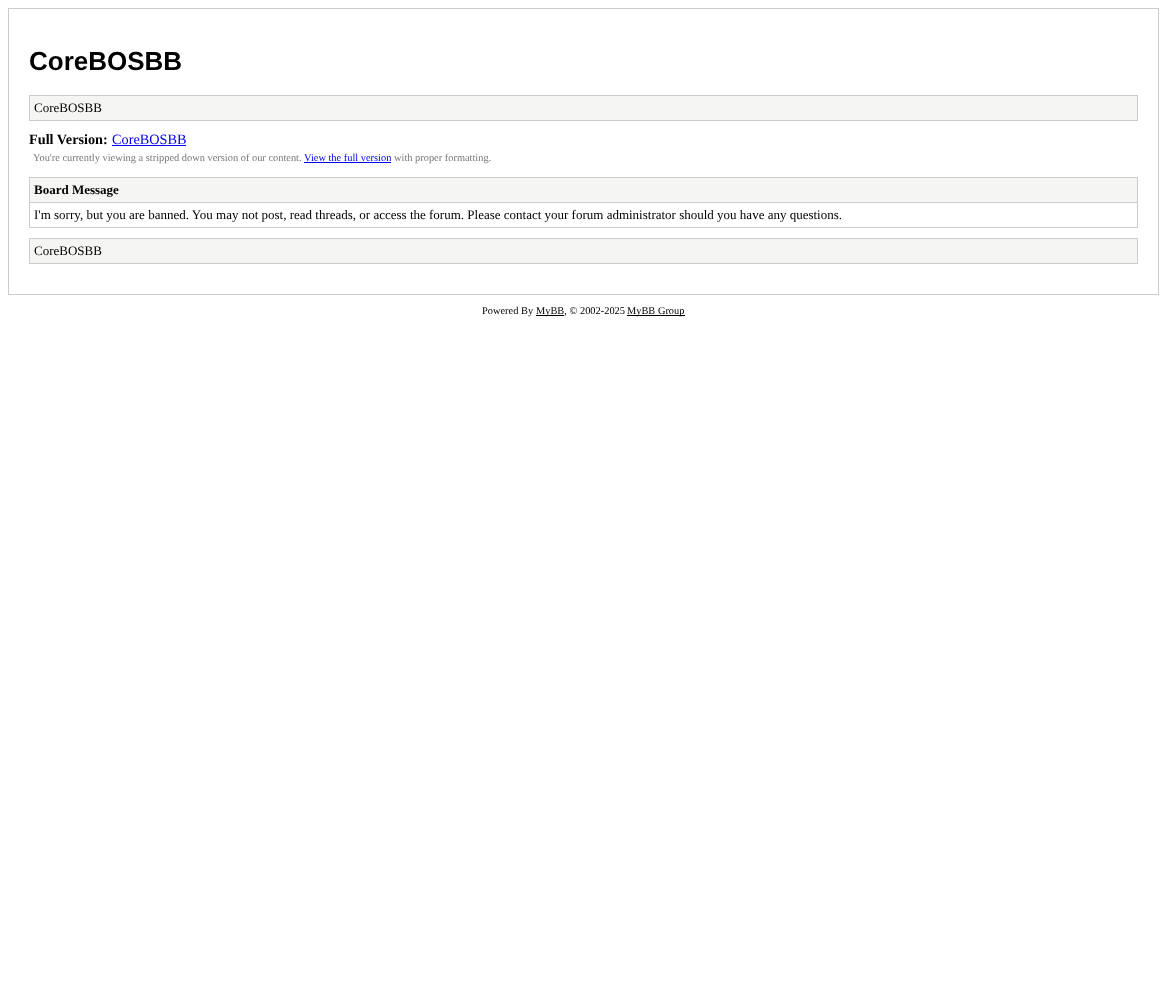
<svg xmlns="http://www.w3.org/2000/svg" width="1167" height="987">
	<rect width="100%" height="100%" fill="#FFFFFF" />
	<rect x="8.5" y="8.5" width="1150" height="286" fill="none" stroke="#CCCCCC" />
	<text x="29" y="70" font-family="Liberation Sans" font-size="26" font-weight="700" fill="#000000">CoreBOSBB</text>
	<rect x="29.5" y="95.5" width="1108" height="25" fill="#F5F5F4" stroke="#CCCCCC" />
	<text x="34" y="112" font-family="Liberation Serif" font-size="13" fill="#000000">CoreBOSBB</text>
	<text x="29" y="144" font-family="Liberation Serif" font-size="14.25" font-weight="700" fill="#000000">Full Version:</text>
	<text x="112" y="144" font-family="Liberation Serif" font-size="14.25" fill="#0000EE">CoreBOSBB</text>
	<rect x="112" y="145" width="74" height="1" fill="#0000EE" />
	<text x="33" y="161" font-family="Liberation Serif" font-size="10.4" fill="#777777">You're currently viewing a stripped down version of our content.</text>
	<text x="304" y="161" font-family="Liberation Serif" font-size="10.4" fill="#0000EE">View the full version</text>
	<rect x="304" y="162" width="87" height="1" fill="#0000EE" />
	<text x="394" y="161" font-family="Liberation Serif" font-size="10.4" fill="#777777">with proper formatting.</text>
	<rect x="29.5" y="177.5" width="1108" height="50" fill="none" stroke="#CCCCCC" />
	<rect x="30" y="178" width="1107" height="24" fill="#F5F5F4" />
	<rect x="30" y="202" width="1107" height="1" fill="#CCCCCC" />
	<text x="34" y="194" font-family="Liberation Serif" font-size="13" font-weight="700" fill="#000000">Board Message</text>
	<text x="34" y="219" font-family="Liberation Serif" font-size="13" fill="#000000">I'm sorry, but you are banned. You may not post, read threads, or access the forum. Please contact your forum administrator should you have any questions.</text>
	<rect x="29.5" y="238.5" width="1108" height="25" fill="#F5F5F4" stroke="#CCCCCC" />
	<text x="34" y="255" font-family="Liberation Serif" font-size="13" fill="#000000">CoreBOSBB</text>
	<text x="482" y="314" font-family="Liberation Serif" font-size="10.4" fill="#000000">Powered By</text>
	<rect x="536" y="315" width="28" height="1" fill="#000000" />
	<text x="536" y="314" font-family="Liberation Serif" font-size="10.4" fill="#000000">MyBB, © 2002-2025</text>
	<rect x="627" y="315" width="58" height="1" fill="#000000" />
	<text x="627" y="314" font-family="Liberation Serif" font-size="10.4" fill="#000000">MyBB Group</text>
</svg>
